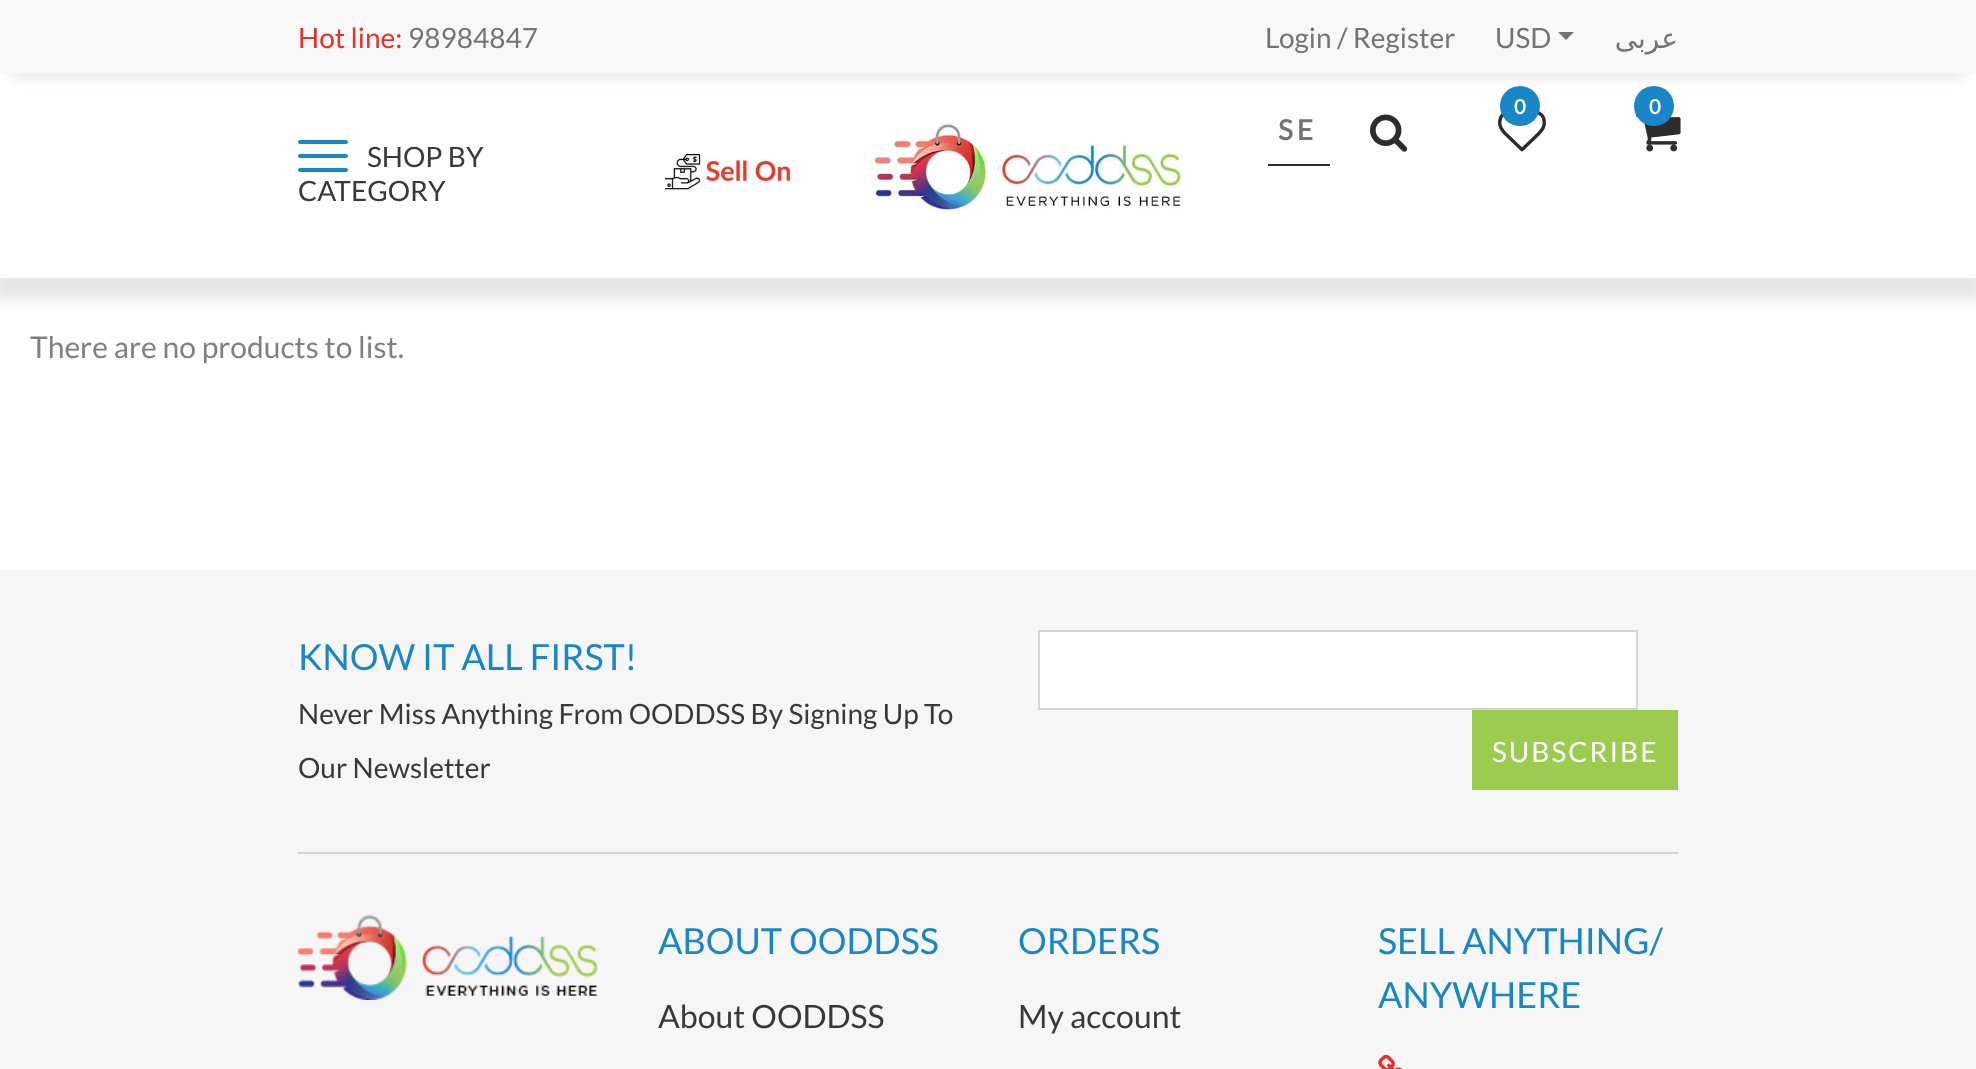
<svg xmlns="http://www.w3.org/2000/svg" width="1976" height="1069">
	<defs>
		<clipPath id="clip1"><rect x="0" y="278" width="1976" height="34" /></clipPath>
	</defs>
	<rect width="100%" height="100%" fill="#FFFFFF" />
	<g clip-path="url(#clip1)">
		<rect x="-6" y="10" width="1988" height="290" fill="#E6E6E6" filter="blur(6px)" />
	</g>
	<rect x="12" y="28" width="1952" height="50" fill="#E6E6E6" filter="blur(6px)" />
	<rect x="0" y="0" width="1976" height="74" fill="#F8F8F8" />
	<text x="298" y="48" font-family="Lato" font-size="28" fill="#EA2F28">Hot line:</text>
	<g font-family="Lato" font-size="28" fill="#747474">
		<text x="408" y="48">98984847</text>
		<text x="1265" y="48">Login / Register</text>
		<text x="1495" y="48">USD</text>
	</g>
	<path d="M1558 32H1574L1566 40Z" fill="#747474" />
	<text x="1678" y="48" font-family="DejaVu Sans" font-size="28" direction="rtl" fill="#747474">عربى</text>
	<rect x="298" y="140" width="50" height="4" rx="2" fill="#1986C7" />
	<rect x="298" y="154" width="50" height="4" rx="2" fill="#1986C7" />
	<rect x="298" y="168" width="50" height="4" rx="2" fill="#1986C7" />
	<g font-family="Lato" font-size="28" fill="#393939">
		<text x="367" y="167">SHOP BY</text>
		<text x="298" y="201">CATEGORY</text>
	</g>
	<image x="664" y="154" width="127" height="36" href="assets/img1.png" />
	<image x="869" y="122" width="316" height="92" href="assets/img2.png" />
	<image x="1498" y="111" width="48" height="41" href="assets/img3.png" />
	<circle cx="1520" cy="106" r="20" fill="#1986C7" />
	<text x="1514" y="114" font-family="Lato" font-size="20" font-weight="700" fill="#FFFFFF">0</text>
	<image x="1636" y="114" width="45" height="38" href="assets/img4.png" />
	<circle cx="1654" cy="106" r="20" fill="#1986C7" />
	<text x="1649" y="114" font-family="Lato" font-size="20" font-weight="700" fill="#FFFFFF">0</text>
	<rect x="1268" y="164" width="62" height="2" fill="#2C2C2C" />
	<text x="1278" y="140" font-family="Lato" font-size="28" font-weight="700" letter-spacing="4" fill="#747474">SE</text>
	<image x="1370" y="114" width="38" height="38" href="assets/img5.png" />
	<text x="30" y="358" font-family="Lato" font-size="30" fill="#808080">There are no products to list.</text>
	<rect x="0" y="570" width="1976" height="499" fill="#F6F6F6" />
	<rect x="298" y="852" width="1380" height="2" fill="#D4D4D4" />
	<text x="298" y="670" font-family="Lato" font-size="36" fill="#1986C7">KNOW IT ALL FIRST!</text>
	<g font-family="Lato" font-size="28" fill="#393939">
		<text x="298" y="724">Never Miss Anything From OODDSS By Signing Up To</text>
		<text x="298" y="778">Our Newsletter</text>
	</g>
	<rect x="1039" y="631" width="598" height="78" fill="#FFFFFF" stroke="#D4D4D4" stroke-width="2" />
	<rect x="1472" y="710" width="206" height="80" fill="#9BCC50" />
	<text x="1492" y="762" font-family="Lato" font-size="28" letter-spacing="2" fill="#FFFFFF">SUBSCRIBE</text>
	<image x="298" y="914" width="300" height="86" href="assets/img6.png" />
	<text x="658" y="954" font-family="Lato" font-size="36" fill="#1986C7">ABOUT OODDSS</text>
	<text x="658" y="1028" font-family="Lato" font-size="32" fill="#393939">About OODDSS</text>
	<text x="1018" y="954" font-family="Lato" font-size="36" fill="#1986C7">ORDERS</text>
	<text x="1018" y="1028" font-family="Lato" font-size="32" fill="#393939">My account</text>
	<g font-family="Lato" font-size="36" fill="#1986C7">
		<text x="1378" y="954">SELL ANYTHING/</text>
		<text x="1378" y="1008">ANYWHERE</text>
	</g>
	<image x="1378" y="1054" width="25" height="15" href="assets/img7.png" />
</svg>
